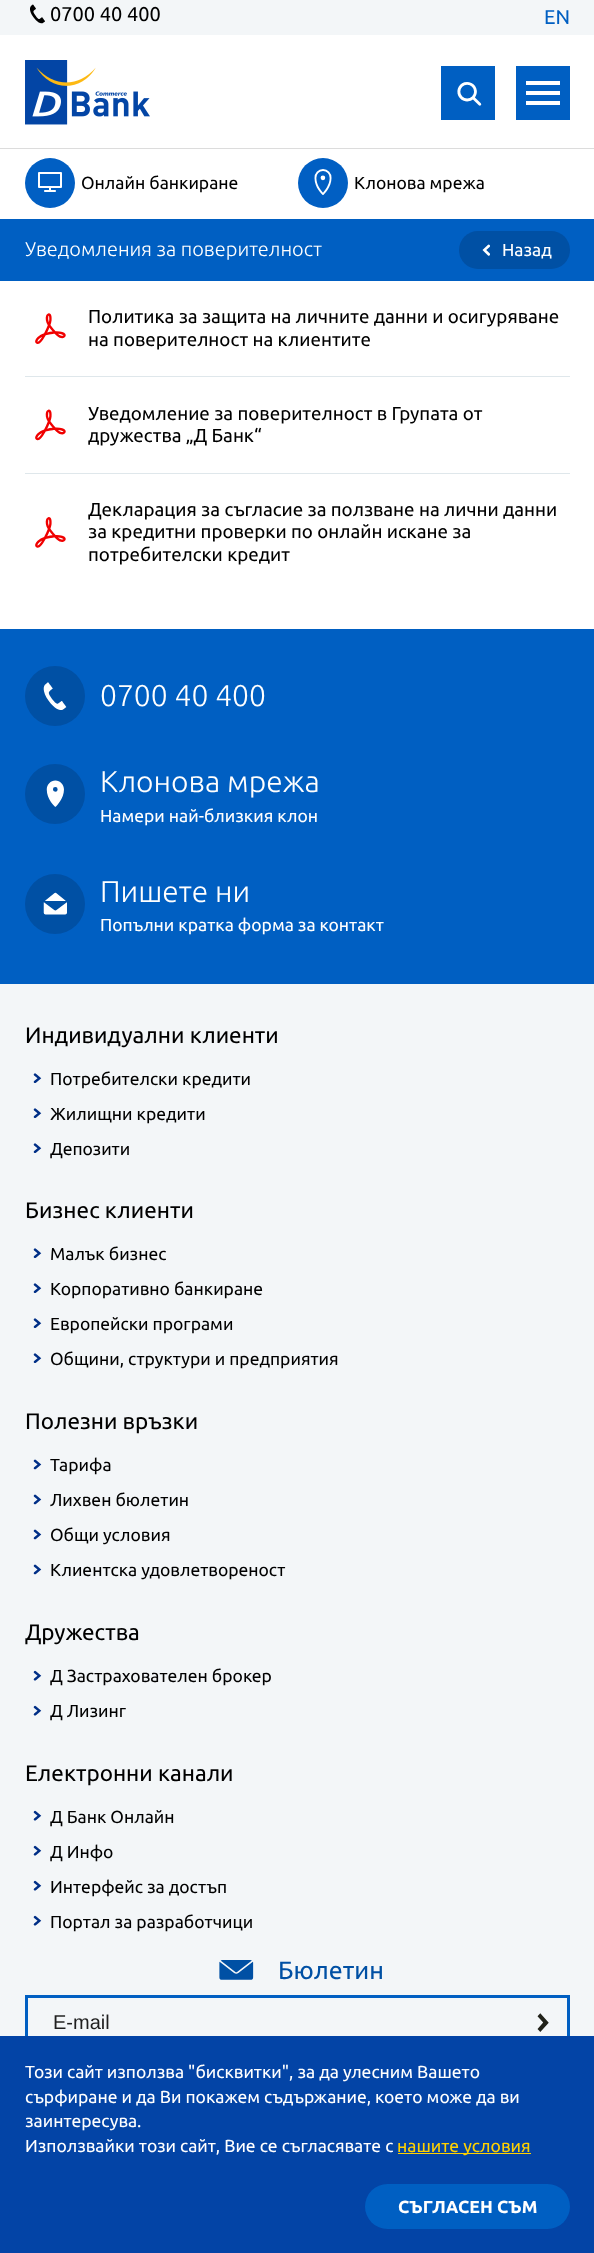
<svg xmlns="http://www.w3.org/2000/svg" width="594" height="2253">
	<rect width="100%" height="100%" fill="#FFFFFF" />
	<rect x="0" y="0" width="594" height="35" fill="#F3F6F8" />
	<image x="30" y="4" width="15" height="20" href="assets/img1.png" />
	<text x="50" y="21" font-family="Ubuntu" font-size="20" fill="#000000">0700 40 400</text>
	<text x="544" y="24" font-family="Ubuntu" font-size="20" fill="#005FC2">EN</text>
	<rect x="441" y="66" width="54" height="54" fill="#005FC2" />
	<image x="457" y="82" width="25" height="24" href="assets/img2.png" />
	<rect x="516" y="66" width="54" height="54" fill="#005FC2" />
	<rect x="526" y="91" width="34" height="4" fill="#FFFFFF" />
	<rect x="526" y="81" width="34" height="4" fill="#FFFFFF" />
	<rect x="526" y="101" width="34" height="4" fill="#FFFFFF" />
	<rect x="0" y="148" width="594" height="1" fill="#DCDCDC" />
	<circle cx="50" cy="183" r="25" fill="#015FC3" />
	<image x="38" y="172" width="24" height="20" href="assets/img3.png" />
	<text x="81" y="189" font-family="Ubuntu" font-size="17.5" fill="#000000">Онлайн банкиране</text>
	<circle cx="323" cy="183" r="25" fill="#015FC3" />
	<image x="314" y="169" width="18" height="26" href="assets/img4.png" />
	<text x="354" y="189" font-family="Ubuntu" font-size="17.5" fill="#000000">Клонова мрежа</text>
	<image x="25" y="60" width="125" height="65" href="assets/img5.png" />
	<rect x="0" y="984" width="594" height="1052" fill="#F3F6F8" />
	<rect x="26.5" y="1996.5" width="542" height="52" fill="none" stroke="#005FC2" stroke-width="3" />
	<rect x="0" y="2036" width="594" height="217" fill="#0344A6" />
	<g font-family="Ubuntu" font-size="17.5" fill="#FFFFFF">
		<text x="25" y="2078">Този сайт използва "бисквитки", за да улесним Вашето</text>
		<text x="25" y="2103">сърфиране и да Ви покажем съдържание, което може да ви</text>
		<text x="25" y="2127">заинтересува.</text>
		<text x="25" y="2152">Използвайки този сайт, Вие се съгласявате с</text>
	</g>
	<rect x="398" y="2153" width="133" height="1" fill="#FED100" />
	<text x="397" y="2152" font-family="Ubuntu" font-size="17.5" fill="#FED100">нашите условия</text>
	<rect x="365" y="2184" width="205" height="45" rx="22.5" fill="#005FC2" />
	<text x="398" y="2213" font-family="Ubuntu" font-size="17.5" font-weight="700" fill="#FFFFFF">СЪГЛАСЕН СЪМ</text>
	<rect x="0" y="219" width="594" height="62" fill="#005FC2" />
	<text x="25" y="256" font-family="Ubuntu" font-size="20" font-weight="300" fill="#FFFFFF">Уведомления за поверителност</text>
	<rect x="459" y="231" width="111" height="38" rx="19" fill="#0050A4" />
	<image x="482" y="244" width="8" height="12" href="assets/img6.png" />
	<text x="502" y="256" font-family="Ubuntu" font-size="17.5" fill="#FFFFFF">Назад</text>
	<image x="35" y="313" width="31" height="31" href="assets/img7.png" />
	<g font-family="Ubuntu" font-size="18.75" fill="#000000">
		<text x="88" y="323">Политика за защита на личните данни и осигуряване</text>
		<text x="88" y="346">на поверителност на клиентите</text>
	</g>
	<rect x="25" y="376" width="545" height="1" fill="#DFE7EB" />
	<image x="35" y="409" width="31" height="32" href="assets/img8.png" />
	<g font-family="Ubuntu" font-size="18.75" fill="#000000">
		<text x="88" y="420">Уведомление за поверителност в Групата от</text>
		<text x="88" y="442">дружества „Д Банк“</text>
	</g>
	<rect x="25" y="473" width="545" height="1" fill="#DFE7EB" />
	<text x="88" y="516" font-family="Ubuntu" font-size="18.75" fill="#000000">Декларация за съгласие за ползване на лични данни</text>
	<image x="35" y="517" width="31" height="31" href="assets/img9.png" />
	<g font-family="Ubuntu" font-size="18.75" fill="#000000">
		<text x="88" y="538">за кредитни проверки по онлайн искане за</text>
		<text x="88" y="561">потребителски кредит</text>
	</g>
	<rect x="0" y="629" width="594" height="355" fill="#005FC2" />
	<circle cx="55" cy="696" r="30" fill="#0050A4" />
	<image x="43" y="682" width="24" height="28" href="assets/img10.png" />
	<text x="100" y="706" font-family="Ubuntu" font-size="30" font-weight="300" fill="#FFFFFF">0700 40 400</text>
	<circle cx="55" cy="794" r="30" fill="#0050A4" />
	<image x="46" y="780" width="18" height="27" href="assets/img11.png" />
	<text x="100" y="792" font-family="Ubuntu" font-size="30" font-weight="300" fill="#FFFFFF">Клонова мрежа</text>
	<text x="100" y="822" font-family="Ubuntu" font-size="17.5" fill="#FFFFFF">Намери най-близкия клон</text>
	<circle cx="55" cy="904" r="30" fill="#0050A4" />
	<image x="43" y="892" width="24" height="23" href="assets/img12.png" />
	<text x="100" y="902" font-family="Ubuntu" font-size="30" font-weight="300" fill="#FFFFFF">Пишете ни</text>
	<text x="100" y="931" font-family="Ubuntu" font-size="17.5" fill="#FFFFFF">Попълни кратка форма за контакт</text>
	<text x="25" y="1043" font-family="Ubuntu" font-size="22.5" fill="#000000">Индивидуални клиенти</text>
	<image x="33" y="1073" width="9" height="10" href="assets/img13.png" />
	<text x="50" y="1085" font-family="Ubuntu" font-size="17.5" fill="#000000">Потребителски кредити</text>
	<image x="33" y="1108" width="9" height="10" href="assets/img13.png" />
	<text x="50" y="1120" font-family="Ubuntu" font-size="17.5" fill="#000000">Жилищни кредити</text>
	<image x="33" y="1143" width="9" height="10" href="assets/img13.png" />
	<text x="50" y="1155" font-family="Ubuntu" font-size="17.5" fill="#000000">Депозити</text>
	<text x="25" y="1218" font-family="Ubuntu" font-size="22.5" fill="#000000">Бизнес клиенти</text>
	<image x="33" y="1248" width="9" height="10" href="assets/img13.png" />
	<text x="50" y="1260" font-family="Ubuntu" font-size="17.5" fill="#000000">Малък бизнес</text>
	<image x="33" y="1283" width="9" height="10" href="assets/img13.png" />
	<text x="50" y="1295" font-family="Ubuntu" font-size="17.5" fill="#000000">Корпоративно банкиране</text>
	<image x="33" y="1318" width="9" height="10" href="assets/img13.png" />
	<text x="50" y="1330" font-family="Ubuntu" font-size="17.5" fill="#000000">Европейски програми</text>
	<image x="33" y="1353" width="9" height="10" href="assets/img13.png" />
	<text x="50" y="1365" font-family="Ubuntu" font-size="17.5" fill="#000000">Общини, структури и предприятия</text>
	<text x="25" y="1429" font-family="Ubuntu" font-size="22.5" fill="#000000">Полезни връзки</text>
	<image x="33" y="1459" width="9" height="11" href="assets/img14.png" />
	<text x="50" y="1471" font-family="Ubuntu" font-size="17.5" fill="#000000">Тарифа</text>
	<image x="33" y="1494" width="9" height="11" href="assets/img14.png" />
	<text x="50" y="1506" font-family="Ubuntu" font-size="17.5" fill="#000000">Лихвен бюлетин</text>
	<image x="33" y="1529" width="9" height="11" href="assets/img14.png" />
	<text x="50" y="1541" font-family="Ubuntu" font-size="17.5" fill="#000000">Общи условия</text>
	<image x="33" y="1564" width="9" height="11" href="assets/img14.png" />
	<text x="50" y="1576" font-family="Ubuntu" font-size="17.5" fill="#000000">Клиентска удовлетвореност</text>
	<text x="25" y="1640" font-family="Ubuntu" font-size="22.5" fill="#000000">Дружества</text>
	<image x="33" y="1670" width="9" height="11" href="assets/img15.png" />
	<text x="50" y="1682" font-family="Ubuntu" font-size="17.5" fill="#000000">Д Застрахователен брокер</text>
	<image x="33" y="1705" width="9" height="11" href="assets/img15.png" />
	<text x="50" y="1717" font-family="Ubuntu" font-size="17.5" fill="#000000">Д Лизинг</text>
	<text x="25" y="1781" font-family="Ubuntu" font-size="22.5" fill="#000000">Електронни канали</text>
	<image x="33" y="1810" width="9" height="11" href="assets/img15.png" />
	<text x="50" y="1823" font-family="Ubuntu" font-size="17.5" fill="#000000">Д Банк Онлайн</text>
	<image x="33" y="1845" width="9" height="11" href="assets/img15.png" />
	<text x="50" y="1858" font-family="Ubuntu" font-size="17.5" fill="#000000">Д Инфо</text>
	<image x="33" y="1880" width="9" height="11" href="assets/img15.png" />
	<text x="50" y="1893" font-family="Ubuntu" font-size="17.5" fill="#000000">Интерфейс за достъп</text>
	<image x="33" y="1915" width="9" height="11" href="assets/img15.png" />
	<text x="50" y="1928" font-family="Ubuntu" font-size="17.5" fill="#000000">Портал за разработчици</text>
	<image x="219" y="1960" width="35" height="20" href="assets/img16.png" />
	<text x="278" y="1979" font-family="Ubuntu" font-size="25" fill="#0050A4">Бюлетин</text>
	<text x="53" y="2029" font-family="Liberation Sans" font-size="20" fill="#1F1F1F">E-mail</text>
	<image x="537" y="2013" width="12" height="19" href="assets/img17.png" />
</svg>
